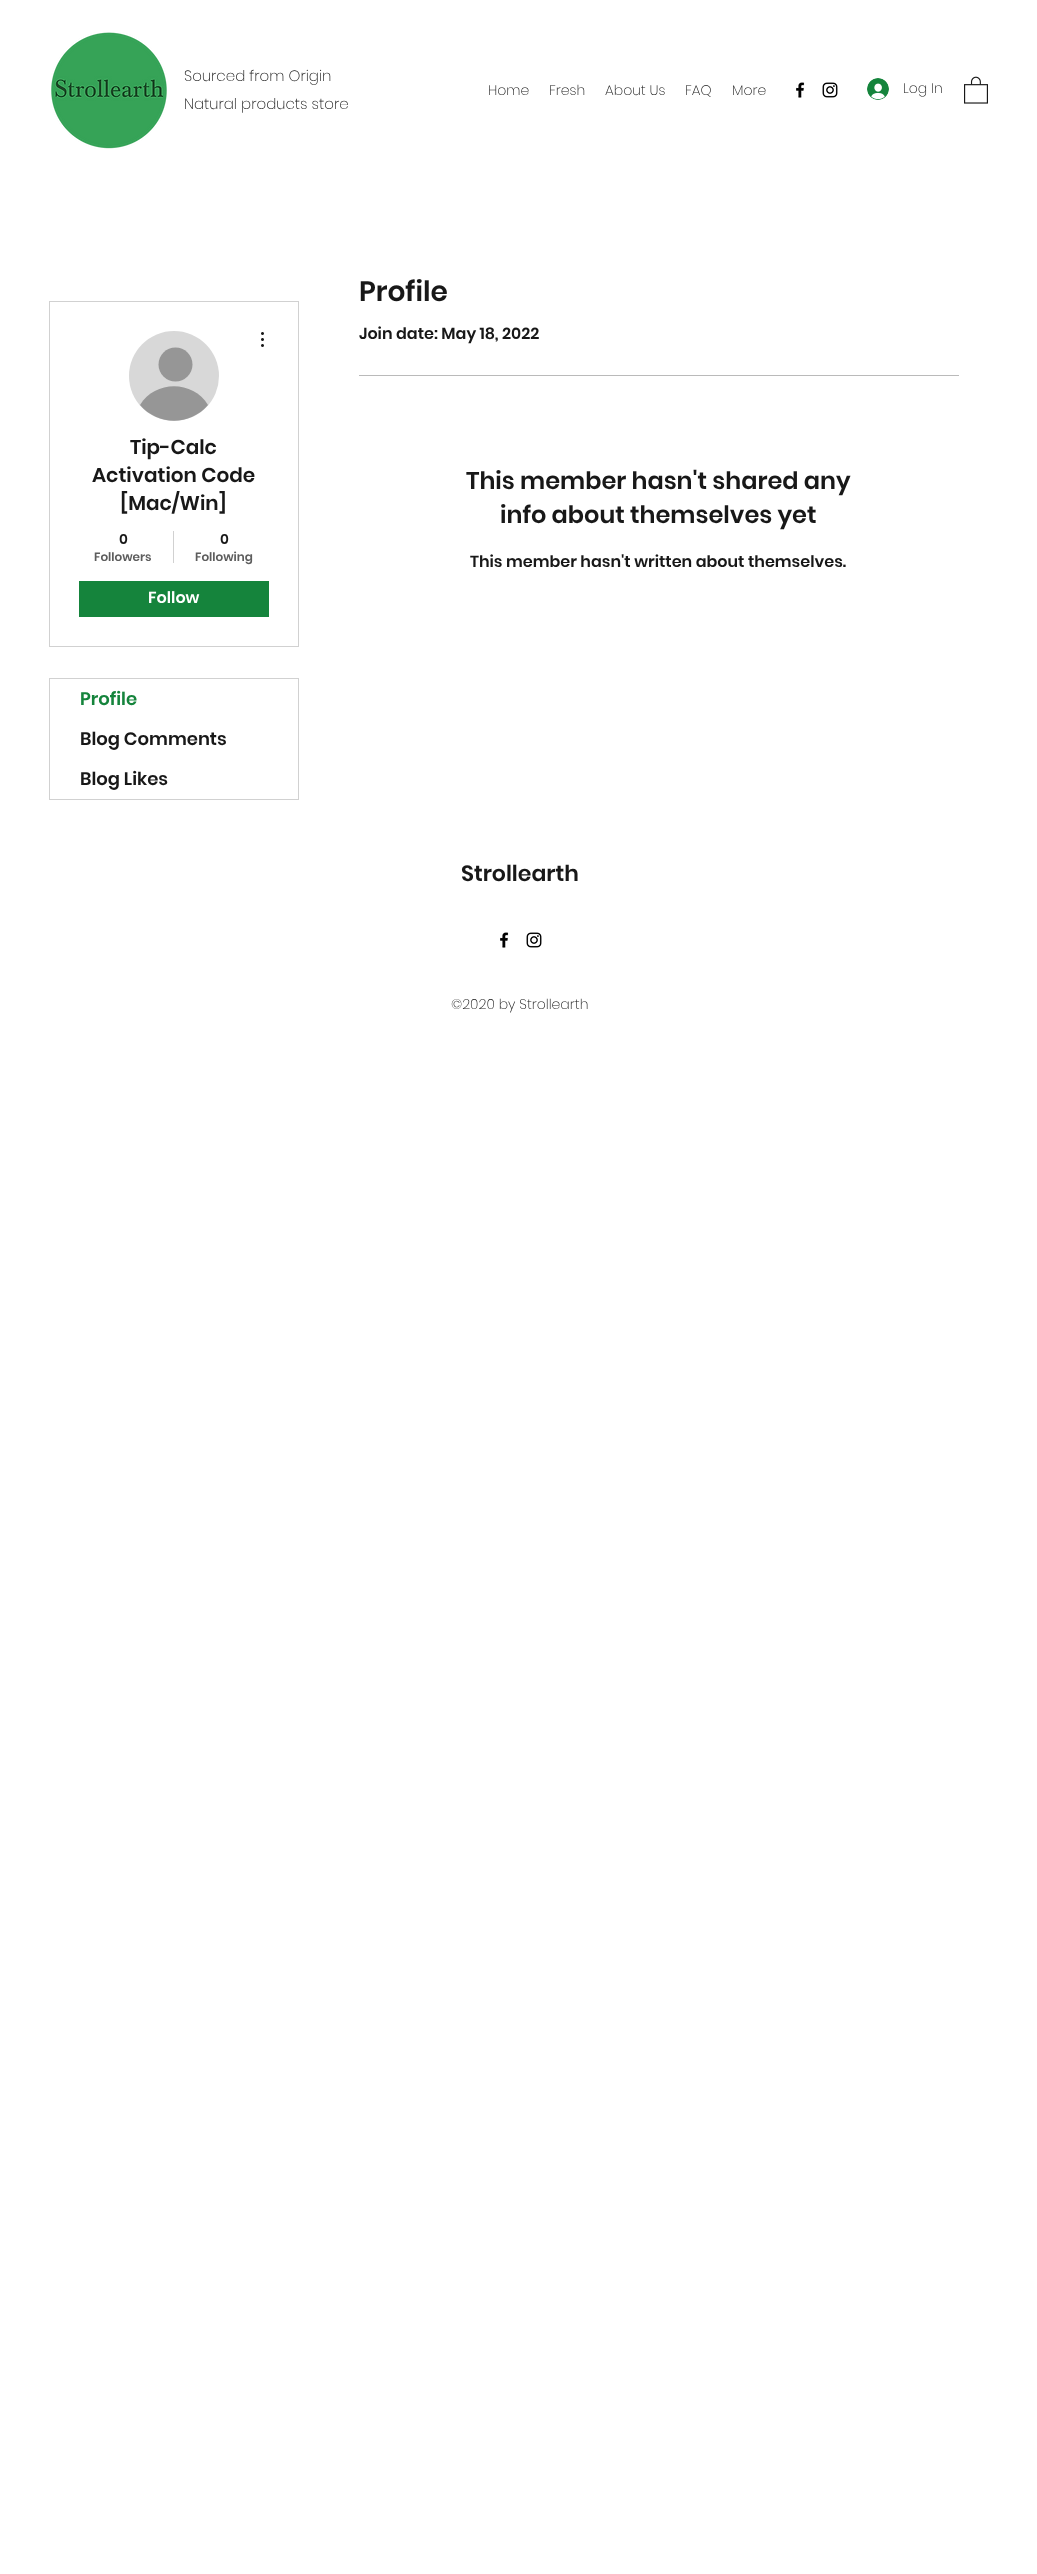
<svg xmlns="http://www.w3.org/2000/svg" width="1037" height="2574">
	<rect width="100%" height="100%" fill="#FFFFFF" />
	<image x="51" y="32" width="116" height="117" href="assets/img1.png" />
	<g font-family="Poppins" font-size="15" font-weight="200" fill="#181818">
		<text x="184" y="81">Sourced from Origin</text>
		<text x="184" y="109">Natural products store</text>
	</g>
	<g font-family="Poppins" font-size="14" font-weight="200" fill="#181818">
		<text x="488" y="95">Home</text>
		<text x="549" y="95">Fresh</text>
		<text x="605" y="95">About Us</text>
		<text x="685" y="95">FAQ</text>
		<text x="732" y="95">More</text>
	</g>
	<image x="796" y="82" width="9" height="16" href="assets/img2.png" />
	<image x="822" y="82" width="16" height="16" href="assets/img3.png" />
	<image x="867" y="78" width="22" height="22" href="assets/img4.png" />
	<text x="903" y="93" font-family="Poppins" font-size="14" font-weight="200" fill="#181818">Log In</text>
	<image x="964" y="76" width="24" height="28" href="assets/img5.png" />
	<rect x="49.5" y="301.5" width="249" height="345" fill="none" stroke="#D1D1D1" />
	<circle cx="174" cy="376" r="45" fill="#D8D8D8" />
	<circle cx="175.5" cy="364.5" r="17" fill="#969696" />
	<path d="M208 405C190 426 158 426 140 405C155 380 193 380 208 405Z" fill="#969696" />
	<image x="261" y="332" width="3" height="15" href="assets/img6.png" />
	<g font-family="Poppins" font-size="20" font-weight="600" fill="#181818">
		<text x="130" y="454">Tip-Calc</text>
		<text x="92" y="482">Activation Code</text>
		<text x="120" y="510">[Mac/Win]</text>
	</g>
	<text x="119" y="544" font-family="Poppins" font-size="14" font-weight="600" fill="#181818">0</text>
	<text x="94" y="561" font-family="Poppins" font-size="12" font-weight="600" fill="#5D5D5D">Followers</text>
	<rect x="173" y="531" width="1" height="32" fill="#D1D1D1" />
	<text x="220" y="544" font-family="Poppins" font-size="14" font-weight="600" fill="#181818">0</text>
	<text x="195" y="561" font-family="Poppins" font-size="12" font-weight="600" fill="#5D5D5D">Following</text>
	<rect x="79" y="581" width="190" height="36" fill="#15843C" />
	<text x="148" y="603" font-family="Poppins" font-size="16" font-weight="600" fill="#FFFFFF">Follow</text>
	<rect x="49.5" y="678.5" width="249" height="121" fill="none" stroke="#D1D1D1" />
	<text x="80" y="705" font-family="Poppins" font-size="18" font-weight="600" fill="#15843C">Profile</text>
	<g font-family="Poppins" font-size="18" font-weight="600" fill="#181818">
		<text x="80" y="745">Blog Comments</text>
		<text x="80" y="785">Blog Likes</text>
	</g>
	<text x="359" y="301" font-family="Poppins" font-size="28" font-weight="600" fill="#181818">Profile</text>
	<text x="359" y="339" font-family="Poppins" font-size="16" font-weight="600" fill="#181818">Join date: May 18, 2022</text>
	<rect x="359" y="375" width="600" height="1" fill="#BABABA" />
	<g font-family="Poppins" font-size="24" font-weight="600" fill="#181818">
		<text x="466" y="489">This member hasn't shared any</text>
		<text x="500" y="523">info about themselves yet</text>
	</g>
	<text x="470" y="567" font-family="Poppins" font-size="16" font-weight="600" fill="#181818">This member hasn't written about themselves.</text>
	<text x="461" y="881" font-family="Poppins" font-size="22" font-weight="600" fill="#181818">Strollearth</text>
	<image x="500" y="932" width="9" height="16" href="assets/img2.png" />
	<image x="526" y="932" width="16" height="16" href="assets/img3.png" />
	<text x="451" y="1009" font-family="Poppins" font-size="14" font-weight="200" fill="#181818">©2020 by Strollearth</text>
</svg>
